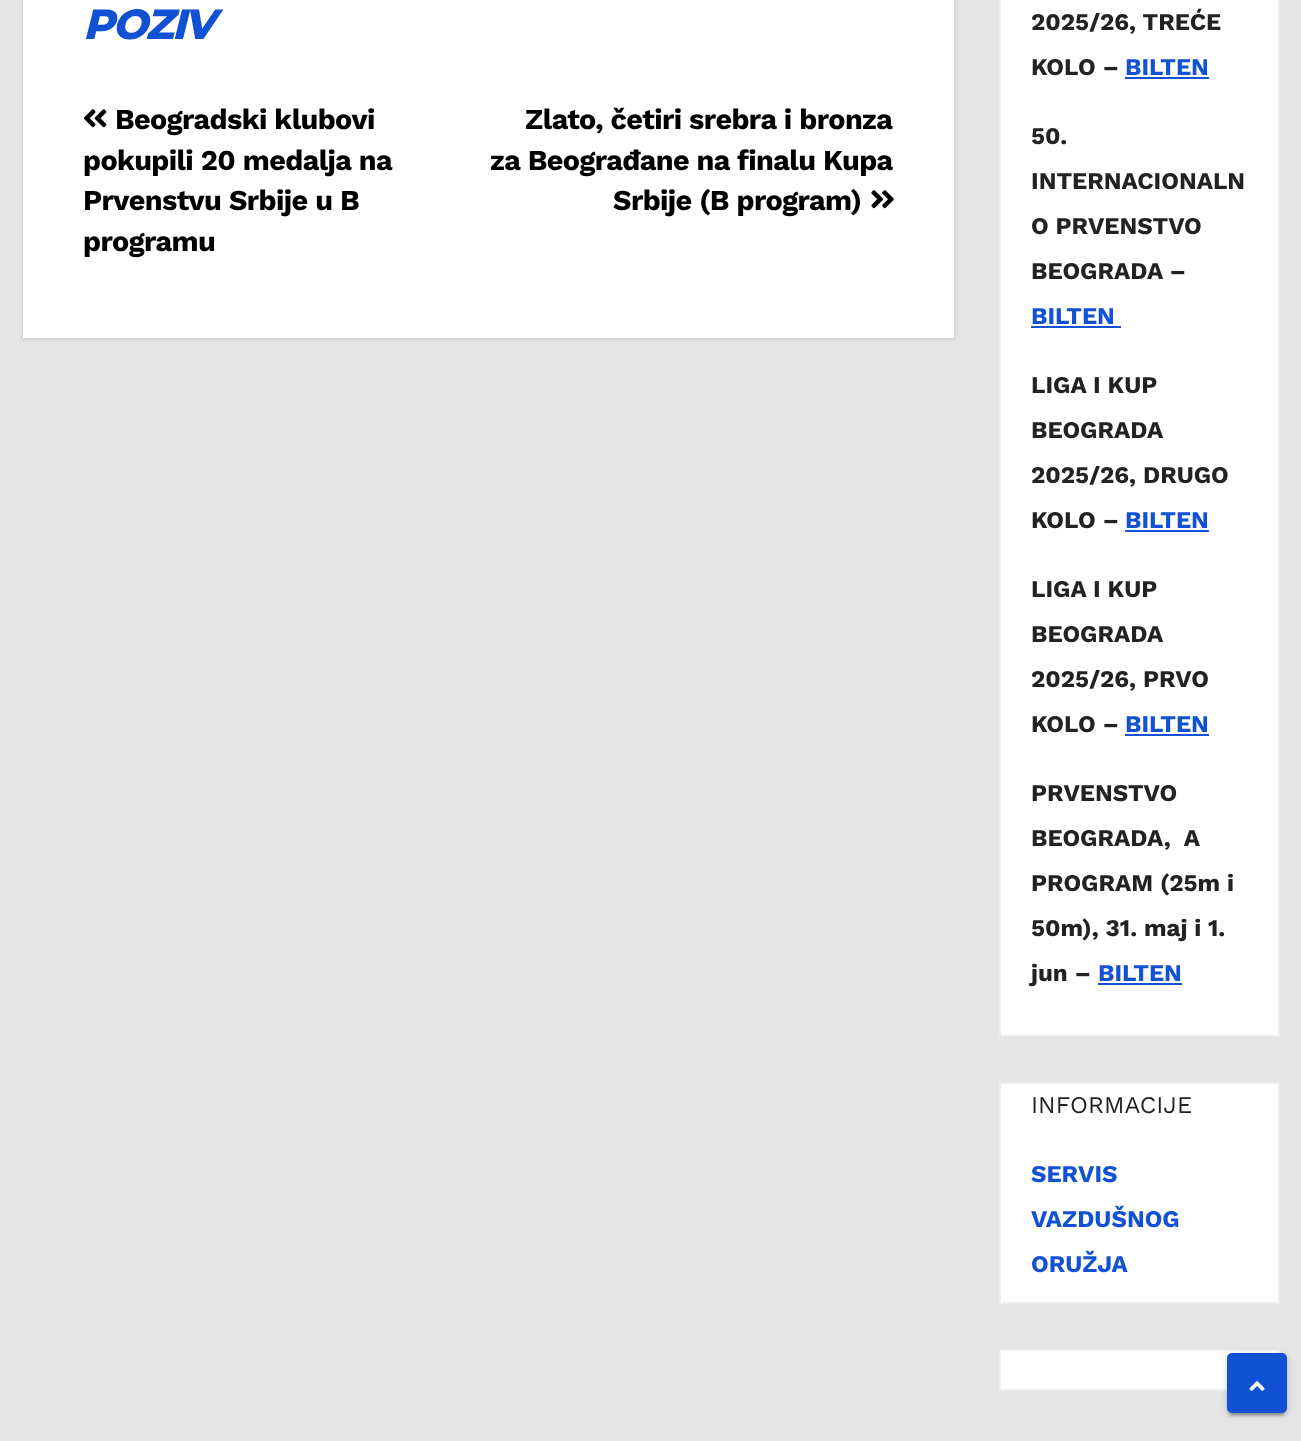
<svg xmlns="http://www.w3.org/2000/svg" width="1301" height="1441">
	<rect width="100%" height="100%" fill="#E5E5E5" />
	<rect x="23" y="-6" width="931" height="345" fill="#000000" fill-opacity="0.15" filter="blur(2px)" />
	<rect x="23" y="0" width="931" height="338" fill="#FFFFFF" />
	<text x="83" y="39" font-family="Montserrat" font-size="42" font-weight="800" font-style="italic" letter-spacing="-2" fill="#1151D3">POZIV</text>
	<image x="83" y="109" width="24" height="19" href="assets/img1.png" />
	<g font-family="Work Sans" font-size="28.75" font-weight="700" letter-spacing="-0.6" fill="#000000">
		<text x="115" y="129">Beogradski klubovi</text>
		<text x="83" y="170">pokupili 20 medalja na</text>
		<text x="83" y="210">Prvenstvu Srbije u B</text>
		<text x="83" y="251">programu</text>
		<text x="525" y="129">Zlato, četiri srebra i bronza</text>
		<text x="490" y="170">za Beograđane na finalu Kupa</text>
		<text x="613" y="210">Srbije (B program)</text>
	</g>
	<image x="871" y="190" width="23" height="19" href="assets/img2.png" />
	<rect x="1000" y="-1" width="279" height="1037" fill="#FFFFFF" stroke="#EEEEEE" stroke-width="2" />
	<g font-family="Work Sans" font-size="24" font-weight="700" fill="#222222">
		<text x="1031" y="30">2025/26, TREĆE</text>
		<text x="1031" y="75">KOLO –</text>
	</g>
	<text x="1125" y="75" font-family="Work Sans" font-size="24" font-weight="700" fill="#1151D3">BILTEN</text>
	<rect x="1125" y="77" width="84" height="2" fill="#1151D3" />
	<g font-family="Work Sans" font-size="24" font-weight="700" fill="#222222">
		<text x="1031" y="144">50.</text>
		<text x="1031" y="189">INTERNACIONALN</text>
		<text x="1031" y="234">O PRVENSTVO</text>
		<text x="1031" y="279">BEOGRADA –</text>
	</g>
	<text x="1031" y="324" font-family="Work Sans" font-size="24" font-weight="700" fill="#1151D3">BILTEN</text>
	<rect x="1031" y="326" width="90" height="2" fill="#1151D3" />
	<g font-family="Work Sans" font-size="24" font-weight="700" fill="#222222">
		<text x="1031" y="393">LIGA I KUP</text>
		<text x="1031" y="438">BEOGRADA</text>
		<text x="1031" y="483">2025/26, DRUGO</text>
		<text x="1031" y="528">KOLO –</text>
	</g>
	<text x="1125" y="528" font-family="Work Sans" font-size="24" font-weight="700" fill="#1151D3">BILTEN</text>
	<rect x="1125" y="530" width="84" height="2" fill="#1151D3" />
	<g font-family="Work Sans" font-size="24" font-weight="700" fill="#222222">
		<text x="1031" y="597">LIGA I KUP</text>
		<text x="1031" y="642">BEOGRADA</text>
		<text x="1031" y="687">2025/26, PRVO</text>
		<text x="1031" y="732">KOLO –</text>
	</g>
	<text x="1125" y="732" font-family="Work Sans" font-size="24" font-weight="700" fill="#1151D3">BILTEN</text>
	<rect x="1125" y="734" width="84" height="2" fill="#1151D3" />
	<g font-family="Work Sans" font-size="24" font-weight="700" fill="#222222">
		<text x="1031" y="801">PRVENSTVO</text>
		<text x="1031" y="846" xml:space="preserve">BEOGRADA,  A</text>
		<text x="1031" y="891">PROGRAM (25m i</text>
		<text x="1031" y="936">50m), 31. maj i 1.</text>
		<text x="1031" y="981">jun –</text>
	</g>
	<text x="1098" y="981" font-family="Work Sans" font-size="24" font-weight="700" fill="#1151D3">BILTEN</text>
	<rect x="1098" y="983" width="84" height="2" fill="#1151D3" />
	<rect x="1000" y="1083" width="279" height="220" fill="#FFFFFF" stroke="#EEEEEE" stroke-width="2" />
	<text x="1031" y="1113" font-family="Work Sans" font-size="24" fill="#222222">INFORMACIJE</text>
	<g font-family="Work Sans" font-size="24" font-weight="700" fill="#1151D3">
		<text x="1031" y="1182">SERVIS</text>
		<text x="1031" y="1227">VAZDUŠNOG</text>
		<text x="1031" y="1272">ORUŽJA</text>
	</g>
	<rect x="1000" y="1350" width="279" height="40" fill="#FFFFFF" stroke="#EEEEEE" stroke-width="2" />
	<rect x="1227" y="1355" width="60" height="60" rx="5" fill="#000000" fill-opacity="0.12" filter="blur(4px)" />
	<rect x="1230" y="1361" width="54" height="54" rx="1.5" fill="#000000" fill-opacity="0.2" filter="blur(1px)" />
	<rect x="1227" y="1356" width="60" height="60" rx="5" fill="#000000" fill-opacity="0.14" filter="blur(1.5px)" />
	<rect x="1228.5" y="1354.5" width="57" height="57" rx="3.5" fill="#1151D3" stroke="#1151D3" stroke-width="3" />
	<image x="1249" y="1381" width="16" height="10" href="assets/img3.png" />
</svg>
